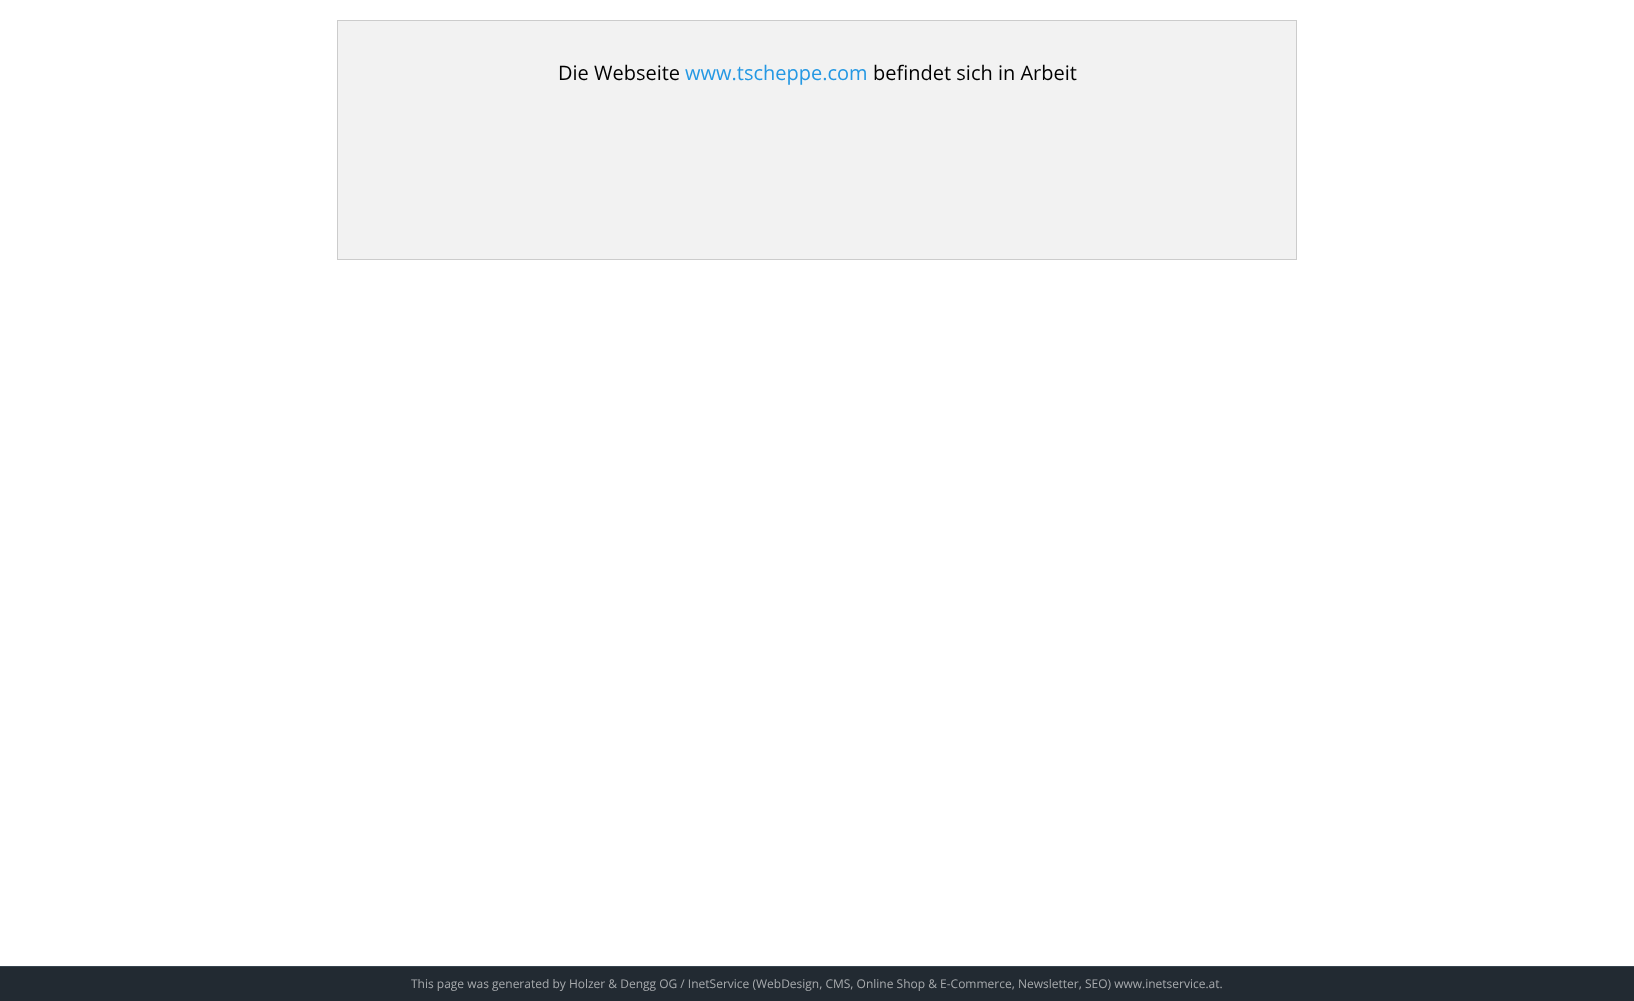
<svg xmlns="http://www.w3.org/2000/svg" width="1634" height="1001">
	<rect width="100%" height="100%" fill="#FFFFFF" />
	<rect x="337.5" y="20.5" width="959" height="239" fill="#F2F2F2" stroke="#CCCCCC" />
	<text x="558" y="80" font-family="Open Sans" font-size="20" fill="#000000">Die Webseite</text>
	<text x="685" y="80" font-family="Open Sans" font-size="20" fill="#2498E3">www.tscheppe.com</text>
	<text x="873" y="80" font-family="Open Sans" font-size="20" fill="#000000">befindet sich in Arbeit</text>
	<rect x="0" y="967" width="1634" height="34" fill="#222A32" />
	<rect x="0" y="966" width="1634" height="1" fill="#38444F" />
	<text x="411" y="988" font-family="Open Sans" font-size="12" fill="#A7AAAD">This page was generated by Holzer &amp; Dengg OG / InetService (WebDesign, CMS, Online Shop &amp; E-Commerce, Newsletter, SEO) www.inetservice.at.</text>
</svg>
